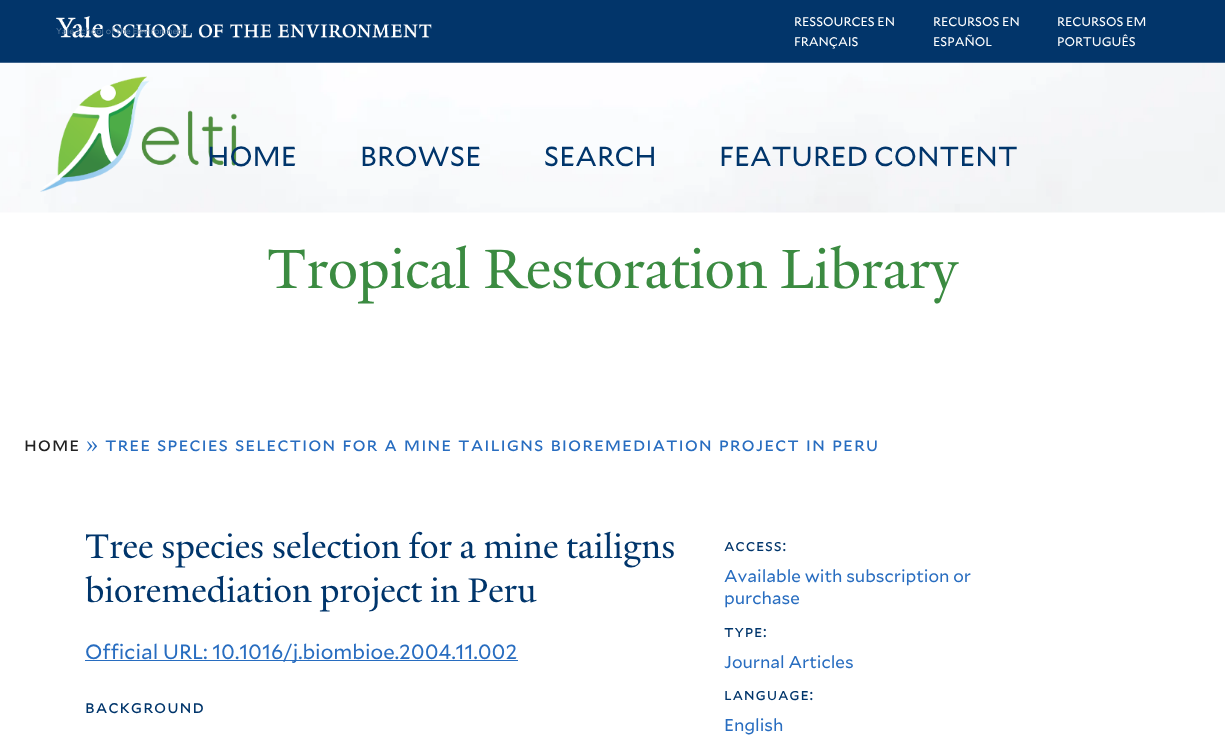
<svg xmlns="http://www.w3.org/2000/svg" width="1225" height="737">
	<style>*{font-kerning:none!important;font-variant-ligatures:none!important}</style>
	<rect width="100%" height="100%" fill="#FFFFFF" />
	<rect x="0" y="0" width="1225" height="63" fill="#02356A" />
	<g font-family="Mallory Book" font-size="12.5" fill="#FFFFFF">
		<text x="794" y="26">RESSOURCES EN</text>
		<text x="794" y="46">FRANÇAIS</text>
		<text x="933" y="26">RECURSOS EN</text>
		<text x="933" y="46">ESPAÑOL</text>
		<text x="1057" y="26">RECURSOS EM</text>
		<text x="1057" y="46">PORTUGUÊS</text>
	</g>
	<image x="56" y="16" width="376" height="22" href="assets/img1.png" />
	<text x="56" y="34" font-family="Mallory Book" font-size="8.75" fill="#517499">Yale School of the Environment</text>
	<image x="0" y="62" width="1225" height="151" href="assets/img3.png" />
	<image x="40" y="76" width="198" height="116" href="assets/img2.png" />
	<g font-family="Mallory Book" font-size="27.5" fill="#00356B">
		<text x="207" y="166">HOME</text>
		<text x="360" y="166">BROWSE</text>
		<text x="544" y="166">SEARCH</text>
		<text x="719" y="166">FEATURED CONTENT</text>
	</g>
	<text x="267" y="288" font-family="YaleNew" font-size="60" fill="#3B8B41">Tropical Restoration Library</text>
	<text x="24" y="451" font-family="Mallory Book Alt" font-size="19.05" letter-spacing="0.95" fill="#222222">home</text>
	<text x="86" y="451" font-family="Mallory Book" font-size="19.05" letter-spacing="0.95" fill="#286DC0">»</text>
	<text x="105" y="451" word-spacing="0.9" font-family="Mallory Book Alt" font-size="19.05" letter-spacing="0.95" fill="#286DC0">tree species selection for a mine tailigns bioremediation project in peru</text>
	<g font-family="YaleNew" font-size="37" fill="#00356B">
		<text x="85" y="558" word-spacing="-0.75">Tree species selection for a mine tailigns</text>
		<text x="85" y="602" word-spacing="-0.5">bioremediation project in Peru</text>
	</g>
	<rect x="85" y="660" width="433" height="1" fill="#286DC0" />
	<text x="85" y="659" font-family="Mallory Book" font-size="20.6" fill="#286DC0">Official URL: 10.1016/j.biombioe.2004.11.002</text>
	<text x="85" y="713" font-family="Mallory Book Alt" font-size="17.5" letter-spacing="0.95" fill="#00356B">background</text>
	<text x="724" y="551" font-family="Mallory Book Alt" font-size="16" letter-spacing="0.75" fill="#00356B">access:</text>
	<g font-family="Mallory Book" font-size="17.2" fill="#286DC0">
		<text x="724" y="582">Available with subscription or</text>
		<text x="724" y="604">purchase</text>
	</g>
	<text x="724" y="637" font-family="Mallory Book Alt" font-size="16" letter-spacing="0.75" fill="#00356B">type:</text>
	<text x="724" y="668" font-family="Mallory Book" font-size="17.2" fill="#286DC0">Journal Articles</text>
	<text x="724" y="700" font-family="Mallory Book Alt" font-size="16" letter-spacing="0.75" fill="#00356B">language:</text>
	<text x="724" y="731" font-family="Mallory Book" font-size="17.2" fill="#286DC0">English</text>
</svg>
